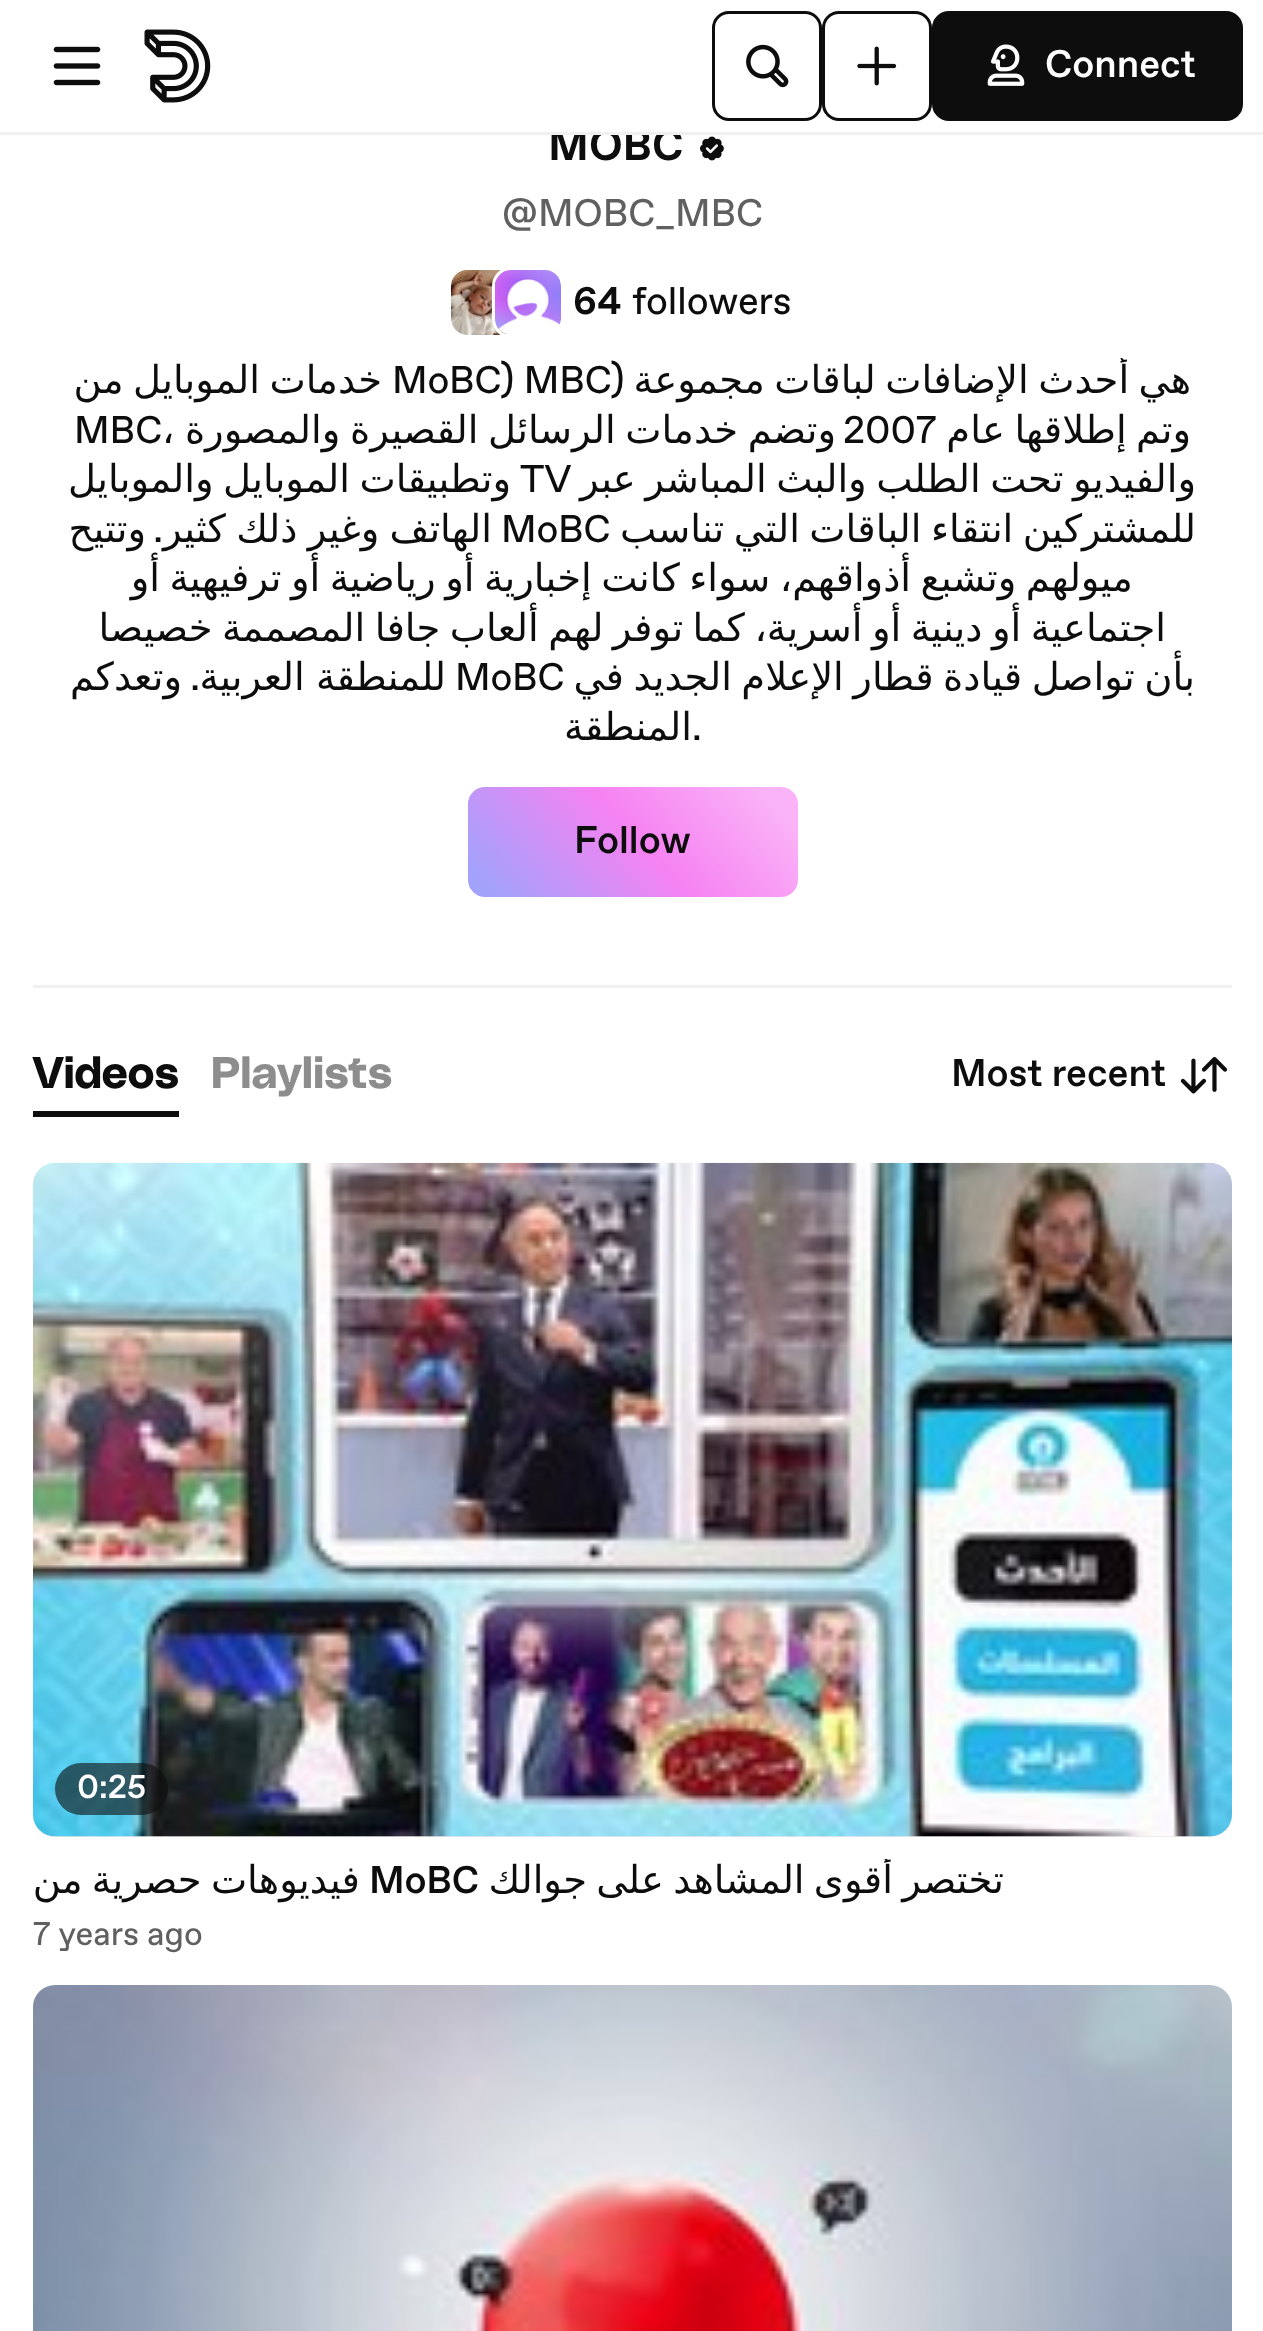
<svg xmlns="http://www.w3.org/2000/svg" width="1263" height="2331">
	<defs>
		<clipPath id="clip1"><rect x="66" y="358" width="1133" height="396" /></clipPath>
		<linearGradient id="g1" gradientUnits="userSpaceOnUse" x1="751" y1="735" x2="514" y2="948"><stop offset="0.09" stop-color="#FAB3F7" /><stop offset="0.48" stop-color="#F682F2" /><stop offset="0.94" stop-color="#A2A2FB" /></linearGradient>
		<clipPath id="clip2"><rect x="33" y="1859" width="1199" height="44" /></clipPath>
	</defs>
	<rect width="100%" height="100%" fill="#FFFFFF" />
	<text x="548" y="160" font-family="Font" font-size="44" font-weight="700" fill="#0D0D0D">MOBC</text>
	<rect x="551" y="128" width="128" height="4" fill="#FFFFFF" />
	<rect x="0" y="132" width="1263" height="3" fill="#F0F0F0" />
	<rect x="933.5" y="12.5" width="308" height="107" rx="15.5" fill="#0D0D0D" stroke="#0D0D0D" stroke-width="3" />
	<text x="1045" y="77" font-family="Font" font-size="38.5" font-weight="500" fill="#FFFFFF">Connect</text>
	<image x="987" y="44" width="38" height="42" href="assets/img1.png" />
	<rect x="823.5" y="12.5" width="107" height="107" rx="15.5" fill="none" stroke="#0D0D0D" stroke-width="3" />
	<image x="857" y="46" width="40" height="40" href="assets/img2.png" />
	<rect x="713.5" y="12.5" width="107" height="107" rx="15.5" fill="none" stroke="#0D0D0D" stroke-width="3" />
	<image x="746" y="44" width="43" height="44" href="assets/img3.png" />
	<image x="144" y="29" width="67" height="74" href="assets/img4.png" />
	<image x="53" y="46" width="48" height="40" href="assets/img5.png" />
	<rect x="33" y="985" width="1199" height="3" fill="#F0F0F0" />
	<image x="700" y="136" width="24" height="25" href="assets/img6.png" />
	<text x="502" y="226" font-family="Font" font-size="38.5" fill="#606060">@MOBC_MBC</text>
	<text x="632" y="314" font-family="Font" font-size="38.5" fill="#0D0D0D">followers</text>
	<text x="573" y="314" font-family="Font" font-size="38.5" font-weight="700" fill="#0D0D0D">64</text>
	<image x="451" y="270" width="55" height="65" href="assets/img8.png" />
	<rect x="449.5" y="268.5" width="69" height="68" rx="17.5" fill="none" stroke="#FFFFFF" stroke-width="3" />
	<image x="495" y="270" width="66" height="64" href="assets/img7.png" />
	<rect x="493.5" y="268.5" width="69" height="68" rx="17.5" fill="none" stroke="#FFFFFF" stroke-width="3" />
	<g clip-path="url(#clip1)">
		<text x="1191" y="393" word-spacing="-2.75" font-family="DejaVu Sans" font-size="38.5" direction="rtl" fill="#0D0D0D">هي أحدث الإضافات لباقات مجموعة</text>
	</g>
	<text x="392" y="393" font-family="Font" font-size="38.5" fill="#0D0D0D">MoBC) MBC)</text>
	<g font-family="DejaVu Sans" font-size="38.5" direction="rtl" fill="#0D0D0D">
		<text x="382" y="393" word-spacing="-2.75">خدمات الموبايل من</text>
		<text x="1191" y="443" word-spacing="-2.75">وتم إطلاقها عام</text>
	</g>
	<text x="843" y="443" font-family="Font" font-size="38.5" fill="#0D0D0D">2007</text>
	<text x="836" y="443" word-spacing="-2.5" font-family="DejaVu Sans" font-size="38.5" direction="rtl" fill="#0D0D0D">وتضم خدمات الرسائل القصيرة والمصورة</text>
	<text x="162" y="443" font-family="DejaVu Sans" font-size="38.5" fill="#0D0D0D">،</text>
	<text x="74" y="443" font-family="Font" font-size="38.5" fill="#0D0D0D">MBC</text>
	<g clip-path="url(#clip1)">
		<text x="1196" y="492" word-spacing="-2.75" font-family="DejaVu Sans" font-size="38.5" direction="rtl" fill="#0D0D0D">والفيديو تحت الطلب والبث المباشر عبر</text>
	</g>
	<text x="520" y="492" font-family="Font" font-size="38.5" fill="#0D0D0D">TV</text>
	<text x="511" y="492" word-spacing="-2.75" font-family="DejaVu Sans" font-size="38.5" direction="rtl" fill="#0D0D0D">وتطبيقات الموبايل والموبايل</text>
	<g clip-path="url(#clip1)">
		<text x="1196" y="542" word-spacing="-2.75" font-family="DejaVu Sans" font-size="38.5" direction="rtl" fill="#0D0D0D">للمشتركين انتقاء الباقات التي تناسب</text>
	</g>
	<text x="501" y="542" font-family="Font" font-size="38.5" fill="#0D0D0D">MoBC</text>
	<text x="492" y="542" word-spacing="-2" font-family="DejaVu Sans" font-size="38.5" direction="rtl" fill="#0D0D0D">الهاتف وغير ذلك كثير</text>
	<text x="163" y="542" font-family="Font" font-size="38.5" direction="rtl" fill="#0D0D0D">.</text>
	<g font-family="DejaVu Sans" font-size="38.5" direction="rtl" fill="#0D0D0D">
		<text x="146" y="542">وتتيح</text>
		<text x="1133" y="591" word-spacing="-2.75">ميولهم وتشبع أذواقهم، سواء كانت إخبارية أو رياضية أو ترفيهية أو</text>
		<text x="1166" y="641" word-spacing="-2.75">اجتماعية أو دينية أو أسرية، كما توفر لهم ألعاب جافا المصممة خصيصا</text>
	</g>
	<g clip-path="url(#clip1)">
		<text x="1195" y="690" word-spacing="-2.75" font-family="DejaVu Sans" font-size="38.5" direction="rtl" fill="#0D0D0D">بأن تواصل قيادة قطار الإعلام الجديد في</text>
	</g>
	<text x="455" y="690" font-family="Font" font-size="38.5" fill="#0D0D0D">MoBC</text>
	<text x="446" y="690" word-spacing="-1" font-family="DejaVu Sans" font-size="38.5" direction="rtl" fill="#0D0D0D">للمنطقة العربية</text>
	<text x="200" y="690" font-family="Font" font-size="38.5" direction="rtl" fill="#0D0D0D">.</text>
	<text x="182" y="690" font-family="DejaVu Sans" font-size="38.5" direction="rtl" fill="#0D0D0D">وتعدكم</text>
	<text x="692" y="740" font-family="Font" font-size="38.5" fill="#0D0D0D">.</text>
	<text x="692" y="740" font-family="DejaVu Sans" font-size="38.5" direction="rtl" fill="#0D0D0D">المنطقة</text>
	<rect x="468" y="787" width="330" height="110" rx="17" fill="url(#g1)" />
	<text x="574" y="853" font-family="Font" font-size="38.5" font-weight="500" fill="#0D0D0D">Follow</text>
	<image x="1180" y="1057" width="48" height="37" href="assets/img9.png" />
	<text x="951" y="1086" font-family="Font" font-size="38.5" font-weight="500" fill="#0D0D0D">Most recent</text>
	<text x="211" y="1088" font-family="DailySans" font-size="44" font-weight="700" letter-spacing="0.5" fill="#8D8D8D">Playlists</text>
	<path d="M33 1111V1117H179V1048V1111Z" fill="#0D0D0D" />
	<text x="33" y="1088" font-family="DailySans" font-size="44" font-weight="700" letter-spacing="0.5" fill="#0D0D0D">Videos</text>
	<rect x="33" y="1163" width="1199" height="674" rx="22" fill="#E8E8E8" />
	<image x="33" y="1162" width="1199" height="675" href="assets/img10.png" />
	<rect x="55" y="1763" width="113" height="52" rx="26" fill="#0D0D0D" fill-opacity="0.6" />
	<text x="77" y="1798" font-family="Font" font-size="33" font-weight="500" fill="#FFFFFF">0:25</text>
	<g clip-path="url(#clip2)">
		<text x="1004" y="1893" word-spacing="-3" font-family="DejaVu Sans" font-size="38.5" direction="rtl" fill="#0D0D0D">تختصر أقوى المشاهد على جوالك</text>
	</g>
	<text x="369" y="1893" font-family="Font" font-size="38.5" font-weight="500" fill="#0D0D0D">MoBC</text>
	<text x="360" y="1893" word-spacing="-3" font-family="DejaVu Sans" font-size="38.5" direction="rtl" fill="#0D0D0D">فيديوهات حصرية من</text>
	<text x="33" y="1945" font-family="Font" font-size="33" fill="#606060">7 years ago</text>
	<image x="33" y="1985" width="1199" height="346" href="assets/img11.png" />
</svg>
